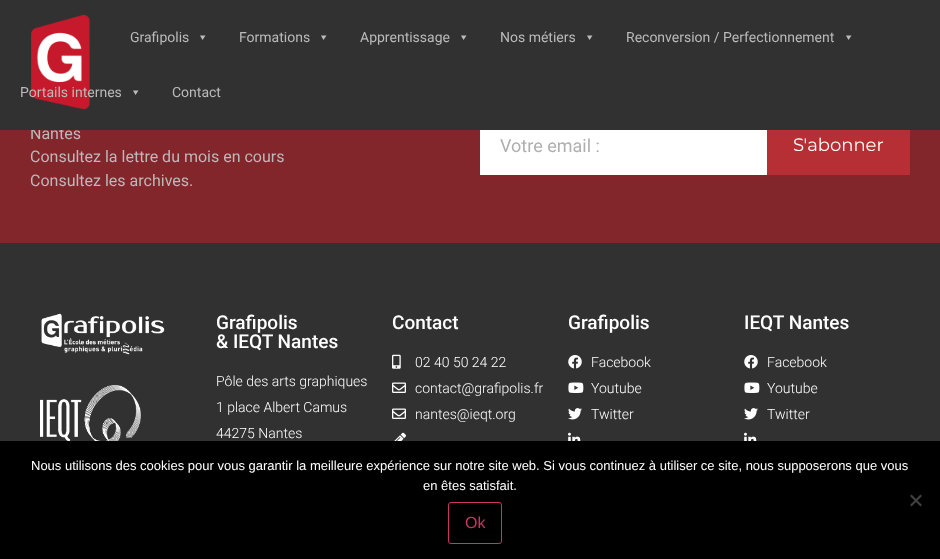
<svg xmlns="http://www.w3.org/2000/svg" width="940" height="559">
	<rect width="100%" height="100%" fill="#83262B" />
	<text x="30" y="139" font-family="Roboto" font-size="16" fill="#BABABA">Nantes</text>
	<rect x="0" y="0" width="940" height="130" fill="#313131" />
	<image x="31" y="14" width="59" height="96" href="assets/img1.png" />
	<text x="130" y="42" font-family="Roboto" font-size="14" fill="#BABABA">Grafipolis</text>
	<path d="M205.5 35.5L202.5 40L200 35.5Z" fill="#BBBBBB" />
	<text x="239" y="42" font-family="Roboto" font-size="14" fill="#BABABA">Formations</text>
	<path d="M326.5 35.5L323.5 40L321 35.5Z" fill="#BBBBBB" />
	<text x="360" y="42" font-family="Roboto" font-size="14" fill="#BABABA">Apprentissage</text>
	<path d="M466.5 35.5L463.5 40L461 35.5Z" fill="#BBBBBB" />
	<text x="500" y="42" font-family="Roboto" font-size="14" fill="#BABABA">Nos métiers</text>
	<path d="M592.5 35.5L589.5 40L587 35.5Z" fill="#BBBBBB" />
	<text x="626" y="42" font-family="Roboto" font-size="14" fill="#BABABA">Reconversion / Perfectionnement</text>
	<path d="M851.5 35.5L848.5 40L846 35.5Z" fill="#BBBBBB" />
	<text x="20" y="97" font-family="Roboto" font-size="14" fill="#BABABA">Portails internes</text>
	<path d="M138.5 90.5L135.5 95L133 90.5Z" fill="#BBBBBB" />
	<text x="172" y="97" font-family="Roboto" font-size="14" fill="#BABABA">Contact</text>
	<g font-family="Roboto" font-size="16" fill="#BABABA">
		<text x="30" y="162">Consultez la lettre du mois en cours</text>
		<text x="30" y="186">Consultez les archives.</text>
	</g>
	<rect x="480" y="130" width="287" height="45" fill="#FFFFFF" />
	<text x="500" y="152" font-family="Roboto" font-size="18" fill="#AFAFAF">Votre email :</text>
	<rect x="767" y="130" width="143" height="45" fill="#B62F34" />
	<text x="793" y="151" font-family="Montserrat" font-size="18" fill="#FFFFFF">S'abonner</text>
	<rect x="0" y="243" width="940" height="198" fill="#313131" />
	<image x="41" y="313" width="124" height="42" href="assets/img2.png" />
	<image x="40" y="385" width="101" height="56" href="assets/img3.png" />
	<g font-family="Roboto" font-size="19" font-weight="500" fill="#FFFFFF">
		<text x="216" y="329">Grafipolis</text>
		<text x="216" y="348">&amp; IEQT Nantes</text>
	</g>
	<g font-family="Roboto" font-size="14" font-weight="300" fill="#FFFFFF">
		<text x="216" y="386">Pôle des arts graphiques</text>
		<text x="216" y="412">1 place Albert Camus</text>
		<text x="216" y="438">44275 Nantes</text>
	</g>
	<text x="392" y="329" font-family="Roboto" font-size="19" font-weight="500" fill="#FFFFFF">Contact</text>
	<image x="392" y="354" width="9" height="15" href="assets/img4.png" />
	<text x="415" y="367" font-family="Roboto" font-size="14" font-weight="300" fill="#FFFFFF">02 40 50 24 22</text>
	<image x="392" y="382" width="14" height="11" href="assets/img5.png" />
	<text x="415" y="393" font-family="Roboto" font-size="14" font-weight="300" fill="#FFFFFF">contact@grafipolis.fr</text>
	<image x="392" y="408" width="14" height="11" href="assets/img5.png" />
	<text x="415" y="419" font-family="Roboto" font-size="14" font-weight="300" fill="#FFFFFF">nantes@ieqt.org</text>
	<image x="394" y="432" width="12" height="9" href="assets/img6.png" />
	<text x="568" y="329" font-family="Roboto" font-size="19" font-weight="500" fill="#FFFFFF">Grafipolis</text>
	<image x="568" y="355" width="14" height="14" href="assets/img7.png" />
	<text x="591" y="367" font-family="Roboto" font-size="14" font-weight="300" fill="#FFFFFF">Facebook</text>
	<image x="568" y="382" width="16" height="11" href="assets/img8.png" />
	<text x="591" y="393" font-family="Roboto" font-size="14" font-weight="300" fill="#FFFFFF">Youtube</text>
	<image x="568" y="408" width="14" height="12" href="assets/img9.png" />
	<text x="591" y="419" font-family="Roboto" font-size="14" font-weight="300" fill="#FFFFFF">Twitter</text>
	<image x="568" y="432" width="13" height="9" href="assets/img10.png" />
	<text x="744" y="329" font-family="Roboto" font-size="19" font-weight="500" fill="#FFFFFF">IEQT Nantes</text>
	<image x="744" y="355" width="14" height="14" href="assets/img7.png" />
	<text x="767" y="367" font-family="Roboto" font-size="14" font-weight="300" fill="#FFFFFF">Facebook</text>
	<image x="744" y="382" width="16" height="11" href="assets/img8.png" />
	<text x="767" y="393" font-family="Roboto" font-size="14" font-weight="300" fill="#FFFFFF">Youtube</text>
	<image x="744" y="408" width="14" height="12" href="assets/img9.png" />
	<text x="767" y="419" font-family="Roboto" font-size="14" font-weight="300" fill="#FFFFFF">Twitter</text>
	<image x="744" y="432" width="13" height="9" href="assets/img10.png" />
	<rect x="0" y="441" width="940" height="118" fill="#000000" />
	<g font-family="Liberation Sans" font-size="13" fill="#FFFFFF">
		<text x="31" y="470">Nous utilisons des cookies pour vous garantir la meilleure expérience sur notre site web. Si vous continuez à utiliser ce site, nous supposerons que vous</text>
		<text x="423" y="490">en êtes satisfait.</text>
	</g>
	<path d="M920.5 494.5L922 496L911.5 506.5L910 505Z" fill="#404040" />
	<path d="M910 496L911.5 494.5L922 505L920.5 506.5Z" fill="#404040" />
	<rect x="448.5" y="502.5" width="53" height="41" rx="2.5" fill="none" stroke="#CC3366" />
	<text x="465" y="528" font-family="Liberation Sans" font-size="16" fill="#CC3366">Ok</text>
</svg>
